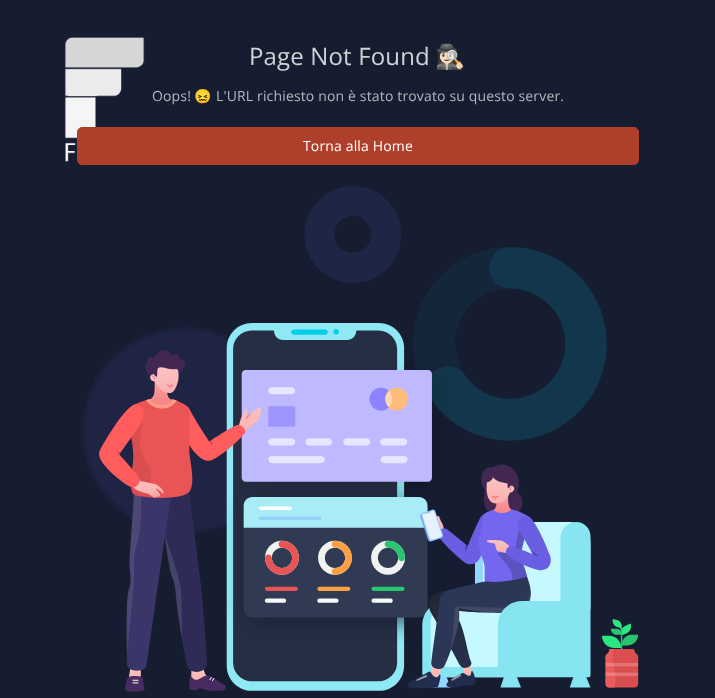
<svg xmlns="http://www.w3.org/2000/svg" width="715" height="698">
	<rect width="100%" height="100%" fill="#161D31" />
	<image x="64" y="37" width="81" height="125" href="assets/img1.png" />
	<text x="249" y="65" font-family="Open Sans" font-size="24" letter-spacing="0.15" fill="#D0D2D6">Page Not Found</text>
	<text x="435" y="65" font-family="Noto Color Emoji" font-size="24" letter-spacing="0.15" fill="#D0D2D6">🕵🏻‍♀️</text>
	<text x="152" y="101" font-family="Open Sans" font-size="14" letter-spacing="0.15" fill="#B4B7BD">Oops!</text>
	<text x="194" y="101" font-family="'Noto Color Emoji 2'" font-size="14" letter-spacing="0.15" fill="#B4B7BD">😖</text>
	<text x="216" y="101" font-family="Open Sans" font-size="14" letter-spacing="0.15" fill="#B4B7BD">L'URL richiesto non è stato trovato su questo server.</text>
	<rect x="77.5" y="127.5" width="561" height="37" rx="4.5" fill="#AE3F2A" stroke="#AE3F2A" />
	<text x="303" y="151" font-family="Open Sans" font-size="14" letter-spacing="0.15" fill="#FFFFFF">Torna alla Home</text>
	<image x="81" y="186" width="558" height="506" href="assets/img2.png" />
</svg>
